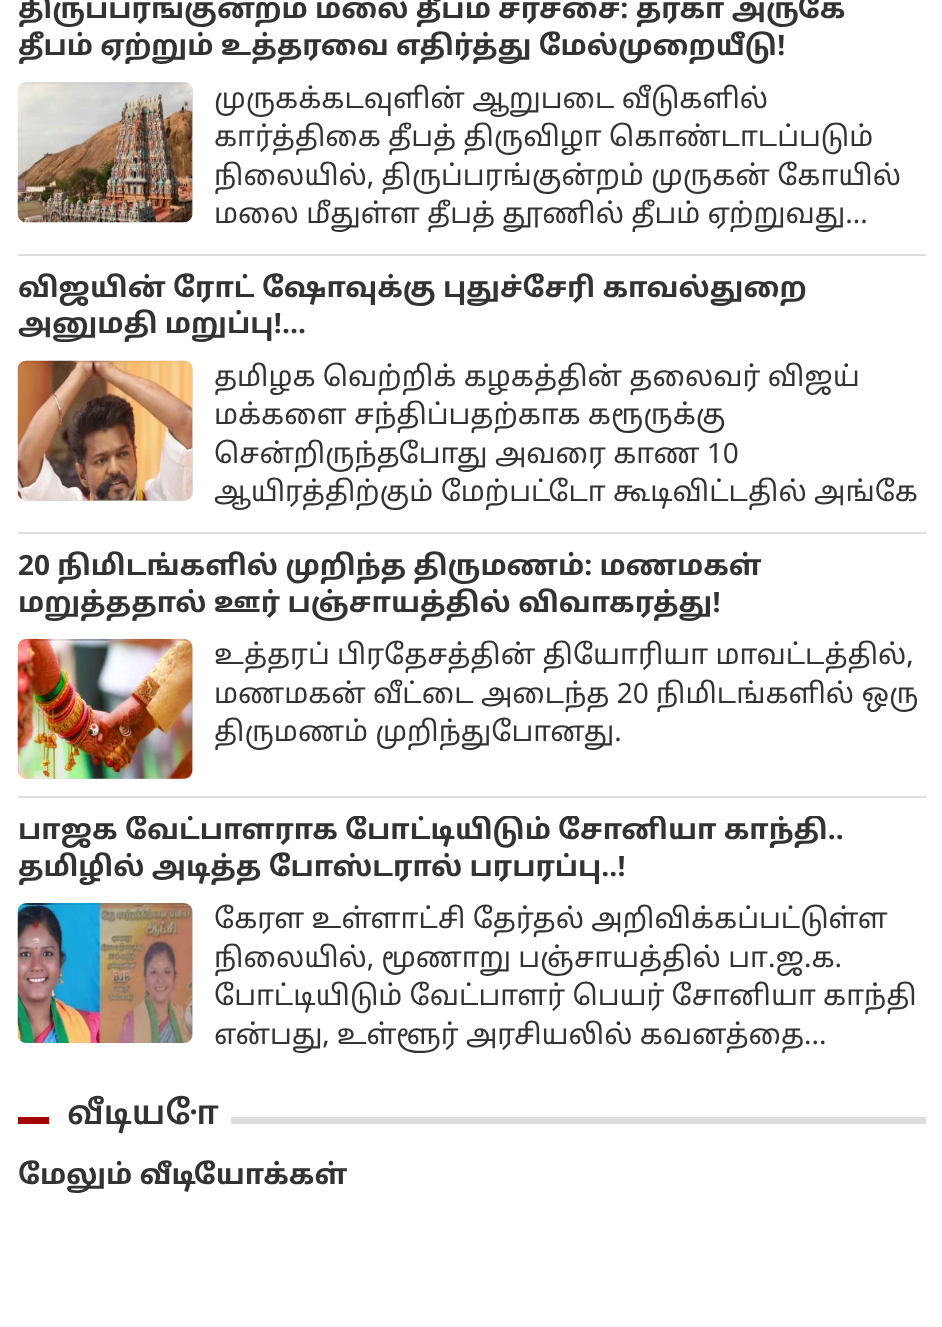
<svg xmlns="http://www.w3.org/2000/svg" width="942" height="1327">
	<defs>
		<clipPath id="clip1"><rect x="18" y="0" width="908" height="68" /></clipPath>
		<clipPath id="clip2"><rect x="18" y="273" width="908" height="74" /></clipPath>
		<clipPath id="clip3"><rect x="18" y="816" width="908" height="73" /></clipPath>
	</defs>
	<rect width="100%" height="100%" fill="#FFFFFF" />
	<rect x="18" y="254" width="908" height="2" fill="#DDDDDD" />
	<g clip-path="url(#clip1)">
		<text x="18" y="18" font-family="Noto Sans Tamil" font-size="28" font-weight="700" fill="#333333">திருப்பரங்குன்றம் மலை தீபம் சர்ச்சை: தர்கா அருகே</text>
	</g>
	<text x="18" y="55" font-family="Noto Sans Tamil" font-size="28" font-weight="700" fill="#333333">தீபம் ஏற்றும் உத்தரவை எதிர்த்து மேல்முறையீடு!</text>
	<rect x="18" y="82" width="175" height="140" rx="9" fill="#DDDDDD" />
	<image x="17" y="82" width="176" height="141" href="assets/img1.png" />
	<g font-family="Noto Sans Tamil" font-size="28" fill="#333333">
		<text x="214" y="108">முருகக்கடவுளின் ஆறுபடை வீடுகளில்</text>
		<text x="214" y="146">கார்த்திகை தீபத் திருவிழா கொண்டாடப்படும்</text>
		<text x="214" y="185">நிலையில், திருப்பரங்குன்றம் முருகன் கோயில்</text>
		<text x="214" y="223">மலை மீதுள்ள தீபத் தூணில் தீபம் ஏற்றுவது…</text>
	</g>
	<rect x="18" y="532" width="908" height="2" fill="#DDDDDD" />
	<g clip-path="url(#clip2)">
		<text x="18" y="297" font-family="Noto Sans Tamil" font-size="28" font-weight="700" fill="#333333">விஜயின் ரோட் ஷோவுக்கு புதுச்சேரி காவல்துறை</text>
	</g>
	<text x="18" y="333" font-family="Noto Sans Tamil" font-size="28" font-weight="700" fill="#333333">அனுமதி மறுப்பு!...</text>
	<rect x="18" y="361" width="175" height="140" rx="9" fill="#DDDDDD" />
	<image x="17" y="360" width="176" height="141" href="assets/img2.png" />
	<g font-family="Noto Sans Tamil" font-size="28" fill="#333333">
		<text x="214" y="386">தமிழக வெற்றிக் கழகத்தின் தலைவர் விஜய்</text>
		<text x="214" y="424">மக்களை சந்திப்பதற்காக கரூருக்கு</text>
		<text x="214" y="463">சென்றிருந்தபோது அவரை காண 10</text>
		<text x="214" y="501">ஆயிரத்திற்கும் மேற்பட்டோ கூடிவிட்டதில் அங்கே</text>
	</g>
	<rect x="18" y="796" width="908" height="2" fill="#DDDDDD" />
	<g font-family="Noto Sans Tamil" font-size="28" font-weight="700" fill="#333333">
		<text x="18" y="575">20 நிமிடங்களில் முறிந்த திருமணம்: மணமகள்</text>
		<text x="18" y="612">மறுத்ததால் ஊர் பஞ்சாயத்தில் விவாகரத்து!</text>
	</g>
	<rect x="18" y="639" width="175" height="140" rx="9" fill="#DDDDDD" />
	<image x="17" y="638" width="176" height="141" href="assets/img3.png" />
	<g font-family="Noto Sans Tamil" font-size="28" fill="#333333">
		<text x="214" y="664">உத்தரப் பிரதேசத்தின் தியோரியா மாவட்டத்தில்,</text>
		<text x="214" y="703">மணமகன் வீட்டை அடைந்த 20 நிமிடங்களில் ஒரு</text>
		<text x="214" y="741">திருமணம் முறிந்துபோனது.</text>
	</g>
	<g clip-path="url(#clip3)">
		<text x="18" y="839" font-family="Noto Sans Tamil" font-size="28" font-weight="700" fill="#333333">பாஜக வேட்பாளராக போட்டியிடும் சோனியா காந்தி..</text>
	</g>
	<text x="18" y="876" font-family="Noto Sans Tamil" font-size="28" font-weight="700" fill="#333333">தமிழில் அடித்த போஸ்டரால் பரபரப்பு..!</text>
	<rect x="18" y="903" width="175" height="140" rx="9" fill="#DDDDDD" />
	<image x="17" y="903" width="176" height="140" href="assets/img4.png" />
	<g font-family="Noto Sans Tamil" font-size="28" fill="#333333">
		<text x="214" y="928">கேரள உள்ளாட்சி தேர்தல் அறிவிக்கப்பட்டுள்ள</text>
		<text x="214" y="967">நிலையில், மூணாறு பஞ்சாயத்தில் பா.ஜ.க.</text>
		<text x="214" y="1005">போட்டியிடும் வேட்பாளர் பெயர் சோனியா காந்தி</text>
		<text x="214" y="1044">என்பது, உள்ளூர் அரசியலில் கவனத்தை…</text>
	</g>
	<rect x="18" y="1117" width="31" height="7" fill="#A50404" />
	<text x="67" y="1124" font-family="Noto Sans Tamil" font-size="33.25" font-weight="600" fill="#333333">வீடியோ</text>
	<rect x="231" y="1117" width="695" height="7" fill="#DDDDDD" />
	<text x="18" y="1184" font-family="Noto Sans Tamil" font-size="28" font-weight="700" fill="#333333">மேலும் வீடியோக்கள்</text>
</svg>
